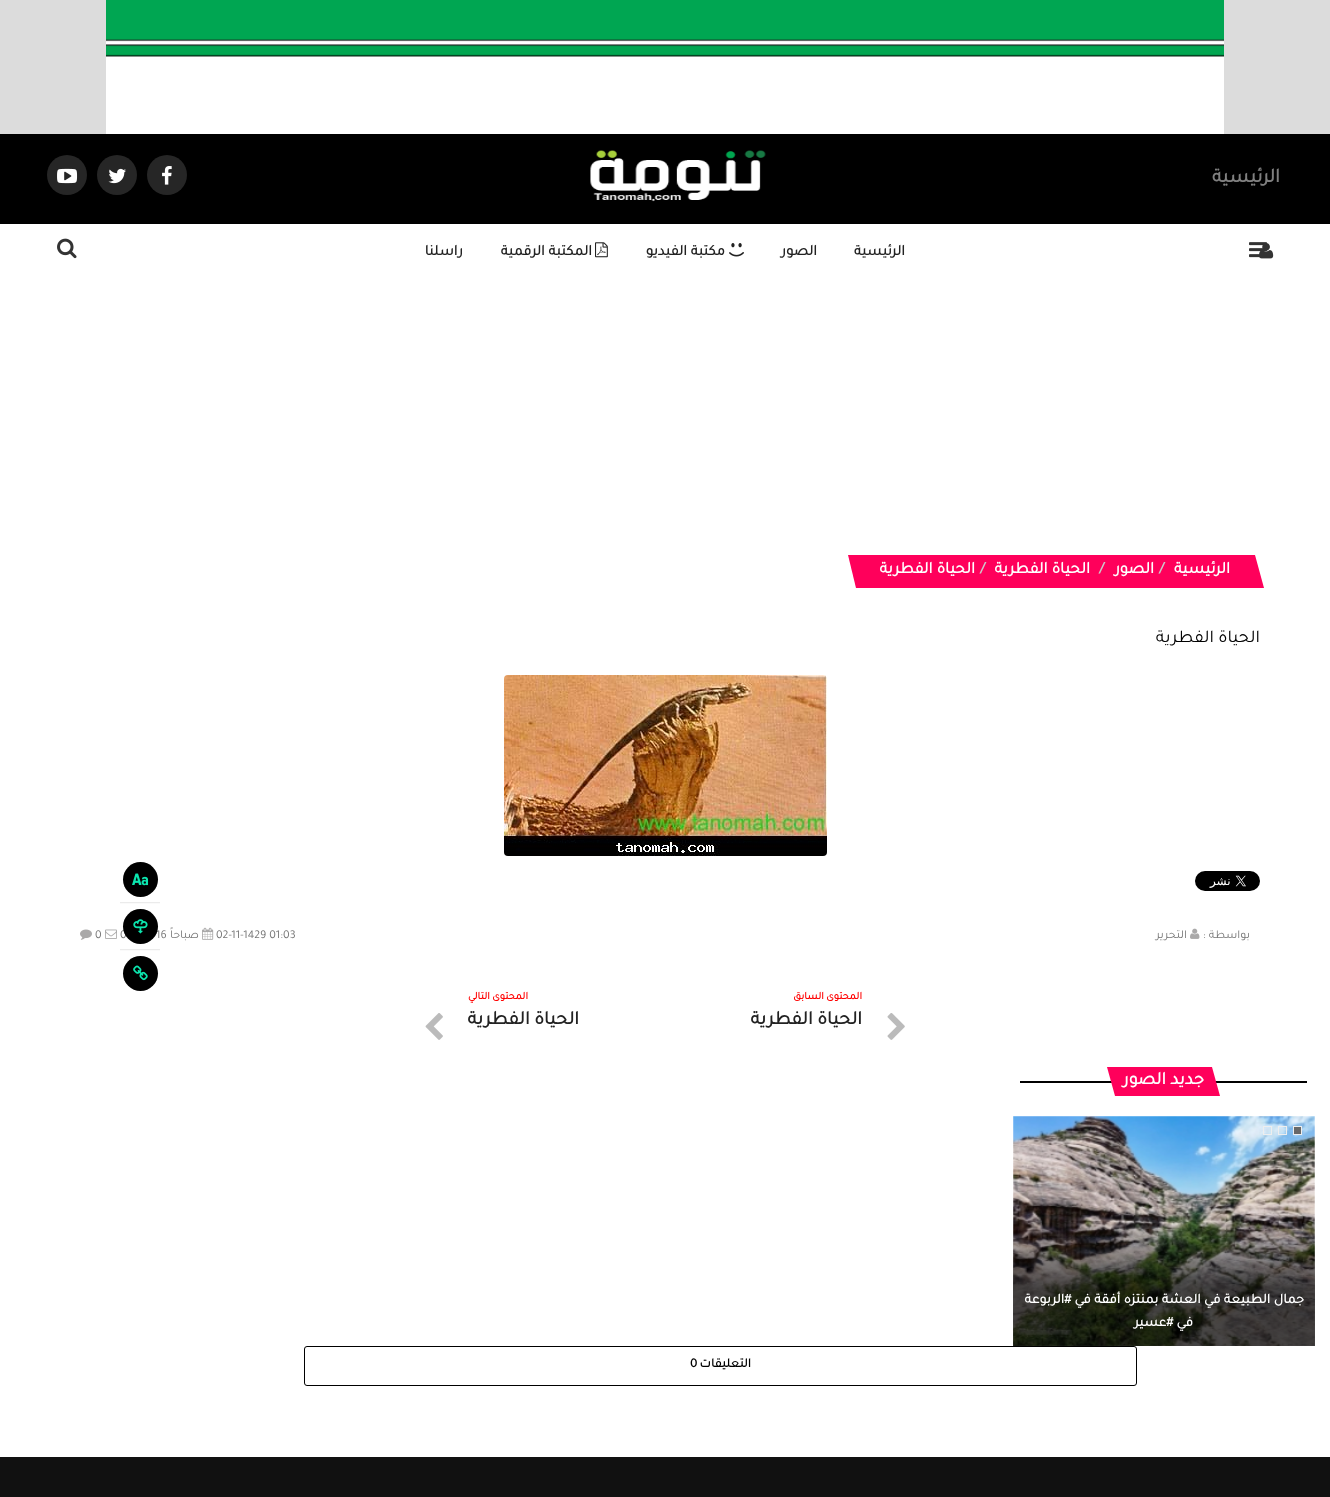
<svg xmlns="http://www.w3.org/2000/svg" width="1330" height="1497">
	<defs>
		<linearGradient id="g1" gradientUnits="userSpaceOnUse" x1="1164" y1="1116" x2="1164" y2="1346"><stop offset="0.45" stop-color="#000000" stop-opacity="0" /><stop offset="0.75" stop-color="#000000" stop-opacity="0.7" /></linearGradient>
	</defs>
	<rect width="100%" height="100%" fill="#DCDCDC" />
	<image x="106" y="0" width="1118" height="134" href="assets/img1.png" />
	<rect x="0" y="224" width="1330" height="1233" fill="#FFFFFF" />
	<rect x="0" y="134" width="1330" height="90" fill="#000000" />
	<text x="1280" y="182" font-family="Tajawal" font-size="20" font-weight="700" direction="rtl" fill="#808080">الرئيسية</text>
	<image x="590" y="150" width="176" height="52" href="assets/img2.png" />
	<circle cx="167" cy="175" r="20" fill="#262626" />
	<image x="162" y="166" width="10" height="19" href="assets/img3.png" />
	<circle cx="117" cy="175" r="20" fill="#262626" />
	<image x="108" y="168" width="18" height="16" href="assets/img4.png" />
	<circle cx="67" cy="175" r="20" fill="#262626" />
	<image x="57" y="168" width="21" height="16" href="assets/img5.png" />
	<image x="1249" y="242" width="18" height="16" href="assets/img6.png" />
	<image x="1259" y="243" width="15" height="16" href="assets/img7.png" />
	<g font-family="Tajawal" font-size="15" font-weight="700" direction="rtl" fill="#222222">
		<text x="905" y="255">الرئيسية</text>
		<text x="817" y="255">الصور</text>
	</g>
	<image x="729" y="243" width="15" height="14" href="assets/img8.png" />
	<text x="725" y="255" font-family="Tajawal" font-size="15" font-weight="700" direction="rtl" fill="#222222">مكتبة الفيديو</text>
	<image x="595" y="242" width="13" height="16" href="assets/img9.png" />
	<g font-family="Tajawal" font-size="15" font-weight="700" direction="rtl" fill="#222222">
		<text x="592" y="255">المكتبة الرقمية</text>
		<text x="463" y="255">راسلنا</text>
	</g>
	<image x="57" y="238" width="20" height="21" href="assets/img10.png" />
	<path d="M848 555H1255L1264 588H856Z" fill="#FF005B" />
	<text x="1230" y="573" font-family="Tajawal" font-size="16.5" font-weight="700" letter-spacing="-0.25" direction="rtl" fill="#FFFFFF">الرئيسية</text>
	<text x="1159" y="573" font-family="Tajawal" font-size="16.5" font-weight="700" fill="#CCCCCC">/</text>
	<text x="1154" y="573" font-family="Tajawal" font-size="16.5" font-weight="700" letter-spacing="-0.25" direction="rtl" fill="#FFFFFF">الصور</text>
	<text x="1099" y="573" font-family="Tajawal" font-size="16.5" font-weight="700" fill="#CCCCCC">/</text>
	<text x="1090" y="573" font-family="Tajawal" font-size="16.5" font-weight="700" letter-spacing="-0.25" direction="rtl" fill="#FFFFFF">الحياة الفطرية</text>
	<text x="980" y="573" font-family="Tajawal" font-size="16.5" font-weight="700" fill="#CCCCCC">/</text>
	<text x="975" y="573" font-family="Tajawal" font-size="16.5" font-weight="700" letter-spacing="-0.25" direction="rtl" fill="#FFFFFF">الحياة الفطرية</text>
	<text x="1260" y="642" font-family="Tajawal" font-size="18" direction="rtl" fill="#000000">الحياة الفطرية</text>
	<image x="504" y="675" width="323" height="181" href="assets/img11.png" />
	<image x="1195" y="871" width="65" height="20" href="assets/img12.png" />
	<circle cx="140.5" cy="879.5" r="17.5" fill="#000000" />
	<image x="132" y="873" width="17" height="13" href="assets/img13.png" />
	<rect x="120" y="902" width="40" height="1" fill="#EBEBEB" />
	<rect x="120" y="903" width="40" height="1" fill="#FAFAFA" />
	<g font-family="Tajawal" font-size="12" fill="#777777">
		<text x="156" y="938">16</text>
		<text x="120" y="938">0</text>
	</g>
	<circle cx="140.5" cy="926.5" r="17.5" fill="#000000" />
	<image x="133" y="919" width="15" height="15" href="assets/img14.png" />
	<rect x="120" y="949" width="40" height="1" fill="#EBEBEB" />
	<rect x="120" y="950" width="40" height="1" fill="#FAFAFA" />
	<circle cx="140.5" cy="973.5" r="17.5" fill="#000000" />
	<image x="133" y="965" width="15" height="16" href="assets/img15.png" />
	<text x="1250" y="938" font-family="Tajawal" font-size="12" direction="rtl" fill="#777777">بواسطة :</text>
	<image x="1190" y="928" width="10" height="11" href="assets/img16.png" />
	<text x="1187" y="938" font-family="Tajawal" font-size="12" direction="rtl" fill="#777777">التحرير</text>
	<text x="216" y="938" font-family="Tajawal" font-size="12" fill="#777777">02-11-1429 01:03</text>
	<image x="202" y="927" width="12" height="13" href="assets/img17.png" />
	<text x="199" y="938" font-family="Tajawal" font-size="12" direction="rtl" fill="#777777">صباحاً</text>
	<image x="105" y="929" width="12" height="10" href="assets/img18.png" />
	<text x="95" y="938" font-family="Tajawal" font-size="12" fill="#777777">0</text>
	<image x="80" y="929" width="12" height="11" href="assets/img19.png" />
	<image x="887" y="1013" width="18" height="27" href="assets/img20.png" />
	<text x="862" y="999" font-family="Tajawal" font-size="10.5" font-weight="700" direction="rtl" fill="#FF0000">المحتوى السابق</text>
	<text x="862" y="1024" font-family="Tajawal" font-size="19.25" font-weight="700" direction="rtl" fill="#222222">الحياة الفطرية</text>
	<text x="528" y="999" font-family="Tajawal" font-size="10.5" font-weight="700" direction="rtl" fill="#FF0000">المحتوى التالي</text>
	<text x="579" y="1024" font-family="Tajawal" font-size="19.25" font-weight="700" direction="rtl" fill="#222222">الحياة الفطرية</text>
	<image x="425" y="1013" width="18" height="27" href="assets/img21.png" />
	<rect x="1020" y="1081" width="287" height="2" fill="#000000" />
	<path d="M1107 1067H1212L1220 1096H1115Z" fill="#FF005B" />
	<text x="1204" y="1084" font-family="Tajawal" font-size="18" font-weight="700" letter-spacing="-0.25" direction="rtl" fill="#FFFFFF">جديد الصور</text>
	<image x="1013" y="1116" width="302" height="230" href="assets/img22.png" />
	<rect x="1293.5" y="1126.5" width="8" height="8" fill="#686868" stroke="#EEEEEE" />
	<rect x="1278.5" y="1126.5" width="8" height="8" fill="none" stroke="#EEEEEE" />
	<rect x="1263.5" y="1126.5" width="8" height="8" fill="none" stroke="#EEEEEE" />
	<rect x="1013" y="1222" width="302" height="124" fill="url(#g1)" />
	<g font-family="Tajawal" font-size="14" font-weight="700" direction="rtl" fill="#FFFFFF">
		<text x="1304" y="1303">جمال الطبيعة في العشة بمنتزه أفقة في #الربوعة</text>
		<text x="1193" y="1326">في #عسير</text>
	</g>
	<rect x="304.5" y="1346.5" width="832" height="39" rx="2.5" fill="none" stroke="#000000" />
	<text x="751" y="1367" font-family="Tajawal" font-size="13" font-weight="700" direction="rtl" fill="#000000">التعليقات</text>
	<text x="690" y="1367" font-family="Tajawal" font-size="13" font-weight="700" fill="#000000">0</text>
	<rect x="0" y="1457" width="1330" height="40" fill="#111111" />
</svg>
